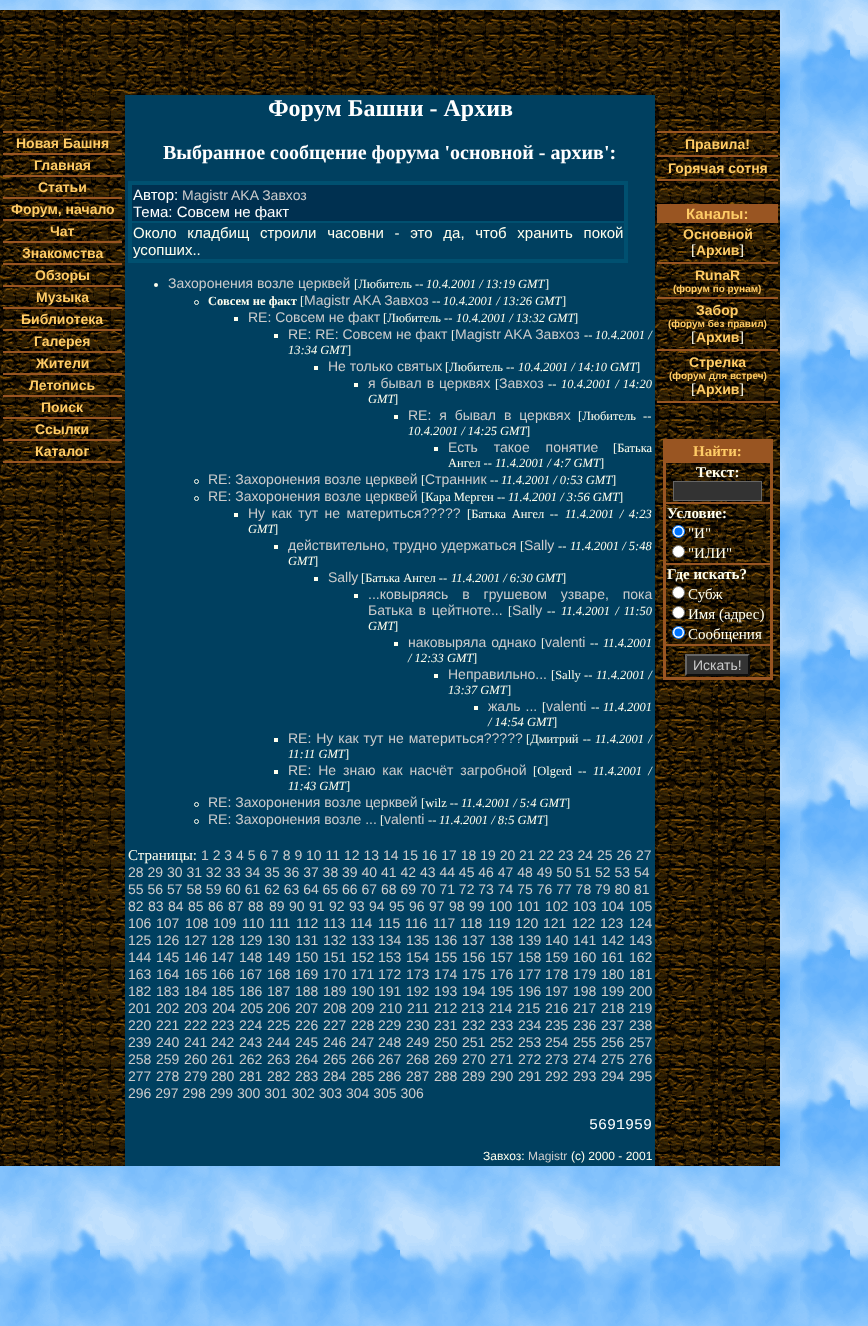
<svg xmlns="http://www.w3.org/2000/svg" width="868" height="1326">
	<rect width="100%" height="100%" fill="#FFFFFF" />
	<image x="0" y="0" width="868" height="1326" href="assets/img1.png" />
	<image x="0" y="10" width="780" height="85" href="assets/img2.png" />
	<image x="0" y="95" width="125" height="749" href="assets/img3.png" />
	<rect x="3" y="131" width="119" height="2" fill="#995522" />
	<text x="16" y="148" font-family="Liberation Sans" font-size="14" font-weight="700" fill="#FFCC66">Новая Башня</text>
	<rect x="3" y="153" width="119" height="2" fill="#995522" />
	<text x="34" y="170" font-family="Liberation Sans" font-size="14" font-weight="700" fill="#FFCC66">Главная</text>
	<rect x="3" y="175" width="119" height="2" fill="#995522" />
	<text x="38" y="192" font-family="Liberation Sans" font-size="14" font-weight="700" fill="#FFCC66">Статьи</text>
	<rect x="3" y="197" width="119" height="2" fill="#995522" />
	<text x="11" y="214" font-family="Liberation Sans" font-size="14" font-weight="700" fill="#FFCC66">Форум, начало</text>
	<rect x="3" y="219" width="119" height="2" fill="#995522" />
	<text x="50" y="236" font-family="Liberation Sans" font-size="14" font-weight="700" fill="#FFCC66">Чат</text>
	<rect x="3" y="241" width="119" height="2" fill="#995522" />
	<text x="22" y="258" font-family="Liberation Sans" font-size="14" font-weight="700" fill="#FFCC66">Знакомства</text>
	<rect x="3" y="263" width="119" height="2" fill="#995522" />
	<text x="35" y="280" font-family="Liberation Sans" font-size="14" font-weight="700" fill="#FFCC66">Обзоры</text>
	<rect x="3" y="285" width="119" height="2" fill="#995522" />
	<text x="36" y="302" font-family="Liberation Sans" font-size="14" font-weight="700" fill="#FFCC66">Музыка</text>
	<rect x="3" y="307" width="119" height="2" fill="#995522" />
	<text x="21" y="324" font-family="Liberation Sans" font-size="14" font-weight="700" fill="#FFCC66">Библиотека</text>
	<rect x="3" y="329" width="119" height="2" fill="#995522" />
	<text x="34" y="346" font-family="Liberation Sans" font-size="14" font-weight="700" fill="#FFCC66">Галерея</text>
	<rect x="3" y="351" width="119" height="2" fill="#995522" />
	<text x="36" y="368" font-family="Liberation Sans" font-size="14" font-weight="700" fill="#FFCC66">Жители</text>
	<rect x="3" y="373" width="119" height="2" fill="#995522" />
	<text x="29" y="390" font-family="Liberation Sans" font-size="14" font-weight="700" fill="#FFCC66">Летопись</text>
	<rect x="3" y="395" width="119" height="2" fill="#995522" />
	<text x="41" y="412" font-family="Liberation Sans" font-size="14" font-weight="700" fill="#FFCC66">Поиск</text>
	<rect x="3" y="417" width="119" height="2" fill="#995522" />
	<text x="35" y="434" font-family="Liberation Sans" font-size="14" font-weight="700" fill="#FFCC66">Ссылки</text>
	<rect x="3" y="439" width="119" height="2" fill="#995522" />
	<text x="35" y="456" font-family="Liberation Sans" font-size="14" font-weight="700" fill="#FFCC66">Каталог</text>
	<rect x="3" y="461" width="119" height="2" fill="#995522" />
	<rect x="125" y="95" width="530" height="1071" fill="#004060" />
	<text x="268" y="116" font-family="Liberation Serif" font-size="24" font-weight="700" fill="#FFFFFF">Форум Башни - Архив</text>
	<text x="163" y="159" font-family="Liberation Serif" font-size="20" font-weight="700" fill="#FFFFFF">Выбранное сообщение форума 'основной - архив':</text>
	<rect x="129.5" y="182.5" width="497" height="79" fill="none" stroke="#005070" stroke-width="3" />
	<rect x="131.5" y="184.5" width="493" height="37" fill="#003050" stroke="#005070" />
	<text x="133" y="200" font-family="Liberation Sans" font-size="15" fill="#FFFFFF">Автор:</text>
	<text x="182" y="200" font-family="Liberation Sans" font-size="14" fill="#CCCCCC">Magistr AKA Завхоз</text>
	<text x="133" y="217" font-family="Liberation Sans" font-size="15" fill="#FFFFFF">Тема: Совсем не факт</text>
	<rect x="131.5" y="222.5" width="493" height="37" fill="none" stroke="#005070" />
	<g font-family="Liberation Sans" font-size="15" fill="#FFFFEE">
		<text x="133" y="238" word-spacing="6.5">Около кладбищ строили часовни - это да, чтоб хранить покой</text>
		<text x="133" y="255">усопших..</text>
	</g>
	<circle cx="156" cy="285" r="2" fill="#FFFFEE" />
	<text x="168" y="288" font-family="Liberation Sans" font-size="14" fill="#CCCCCC">Захоронения возле церквей</text>
	<text x="354" y="288" font-family="Liberation Serif" font-size="12.5" fill="#FFFFEE">[Любитель --</text>
	<text x="426" y="288" font-family="Liberation Serif" font-size="12.5" font-style="italic" fill="#FFFFEE">10.4.2001 / 13:19 GMT</text>
	<text x="545" y="288" font-family="Liberation Serif" font-size="12.5" fill="#FFFFEE">]</text>
	<circle cx="196.5" cy="302.5" r="2" fill="none" stroke="#FFFFEE" />
	<text x="208" y="305" font-family="Liberation Serif" font-size="12.5" font-weight="700" fill="#FFFFEE">Совсем не факт</text>
	<text x="300" y="305" font-family="Liberation Serif" font-size="12.5" fill="#FFFFEE">[</text>
	<text x="304" y="305" font-family="Liberation Sans" font-size="14" fill="#CCCCCC">Magistr AKA Завхоз</text>
	<text x="432" y="305" font-family="Liberation Serif" font-size="12.5" fill="#FFFFEE">--</text>
	<text x="443" y="305" font-family="Liberation Serif" font-size="12.5" font-style="italic" fill="#FFFFEE">10.4.2001 / 13:26 GMT</text>
	<text x="562" y="305" font-family="Liberation Serif" font-size="12.5" fill="#FFFFEE">]</text>
	<rect x="234" y="317" width="4" height="4" fill="#FFFFEE" />
	<text x="248" y="322" font-family="Liberation Sans" font-size="14" fill="#CCCCCC">RE: Совсем не факт</text>
	<text x="383" y="322" font-family="Liberation Serif" font-size="12.5" fill="#FFFFEE">[Любитель --</text>
	<text x="456" y="322" font-family="Liberation Serif" font-size="12.5" font-style="italic" fill="#FFFFEE">10.4.2001 / 13:32 GMT</text>
	<text x="574" y="322" font-family="Liberation Serif" font-size="12.5" fill="#FFFFEE">]</text>
	<rect x="274" y="334" width="4" height="4" fill="#FFFFEE" />
	<text x="288" y="339" font-family="Liberation Sans" font-size="14" fill="#CCCCCC">RE: RE: Совсем не факт</text>
	<text x="451" y="339" font-family="Liberation Serif" font-size="12.5" fill="#FFFFEE">[</text>
	<text x="455" y="339" font-family="Liberation Sans" font-size="14" fill="#CCCCCC">Magistr AKA Завхоз</text>
	<text x="584" y="339" font-family="Liberation Serif" font-size="12.5" fill="#FFFFEE">--</text>
	<g font-family="Liberation Serif" font-size="12.5" font-style="italic" fill="#FFFFEE">
		<text x="595" y="339">10.4.2001 /</text>
		<text x="288" y="354">13:34 GMT</text>
	</g>
	<text x="347" y="354" font-family="Liberation Serif" font-size="12.5" fill="#FFFFEE">]</text>
	<text x="328" y="371" font-family="Liberation Sans" font-size="14" fill="#CCCCCC">Не только святых</text>
	<text x="445" y="371" font-family="Liberation Serif" font-size="12.5" fill="#FFFFEE">[Любитель --</text>
	<text x="518" y="371" font-family="Liberation Serif" font-size="12.5" font-style="italic" fill="#FFFFEE">10.4.2001 / 14:10 GMT</text>
	<rect x="314" y="366" width="4" height="4" fill="#FFFFEE" />
	<text x="636" y="371" font-family="Liberation Serif" font-size="12.5" fill="#FFFFEE">]</text>
	<rect x="354" y="383" width="4" height="4" fill="#FFFFEE" />
	<text x="368" y="388" word-spacing="1" font-family="Liberation Sans" font-size="14" fill="#CCCCCC">я бывал в церквях</text>
	<text x="495" y="388" font-family="Liberation Serif" font-size="12.5" fill="#FFFFEE">[</text>
	<text x="499" y="388" font-family="Liberation Sans" font-size="14" fill="#CCCCCC">Завхоз</text>
	<text x="548" y="388" font-family="Liberation Serif" font-size="12.5" fill="#FFFFEE">--</text>
	<g font-family="Liberation Serif" font-size="12.5" font-style="italic" fill="#FFFFEE">
		<text x="561" y="388" word-spacing="1">10.4.2001 / 14:20</text>
		<text x="368" y="403">GMT</text>
	</g>
	<text x="394" y="403" font-family="Liberation Serif" font-size="12.5" fill="#FFFFEE">]</text>
	<rect x="394" y="415" width="4" height="4" fill="#FFFFEE" />
	<text x="408" y="420" word-spacing="4" font-family="Liberation Sans" font-size="14" fill="#CCCCCC">RE: я бывал в церквях</text>
	<text x="578" y="420" word-spacing="4" font-family="Liberation Serif" font-size="12.5" fill="#FFFFEE">[Любитель --</text>
	<text x="408" y="435" font-family="Liberation Serif" font-size="12.5" font-style="italic" fill="#FFFFEE">10.4.2001 / 14:25 GMT</text>
	<text x="526" y="435" font-family="Liberation Serif" font-size="12.5" fill="#FFFFEE">]</text>
	<rect x="434" y="447" width="4" height="4" fill="#FFFFEE" />
	<text x="448" y="452" word-spacing="12" font-family="Liberation Sans" font-size="14" fill="#CCCCCC">Есть такое понятие</text>
	<g font-family="Liberation Serif" font-size="12.5" fill="#FFFFEE">
		<text x="613" y="452">[Батька</text>
		<text x="448" y="467">Ангел --</text>
	</g>
	<text x="495" y="467" font-family="Liberation Serif" font-size="12.5" font-style="italic" fill="#FFFFEE">11.4.2001 / 4:7 GMT</text>
	<text x="600" y="467" font-family="Liberation Serif" font-size="12.5" fill="#FFFFEE">]</text>
	<circle cx="196.5" cy="481.5" r="2" fill="none" stroke="#FFFFEE" />
	<text x="208" y="484" font-family="Liberation Sans" font-size="14" fill="#CCCCCC">RE: Захоронения возле церквей</text>
	<text x="421" y="484" font-family="Liberation Serif" font-size="12.5" fill="#FFFFEE">[</text>
	<text x="425" y="484" font-family="Liberation Sans" font-size="14" fill="#CCCCCC">Cтранник</text>
	<text x="490" y="484" font-family="Liberation Serif" font-size="12.5" fill="#FFFFEE">--</text>
	<text x="501" y="484" font-family="Liberation Serif" font-size="12.5" font-style="italic" fill="#FFFFEE">11.4.2001 / 0:53 GMT</text>
	<text x="612" y="484" font-family="Liberation Serif" font-size="12.5" fill="#FFFFEE">]</text>
	<text x="208" y="501" font-family="Liberation Sans" font-size="14" fill="#CCCCCC">RE: Захоронения возле церквей</text>
	<text x="421" y="501" font-family="Liberation Serif" font-size="12.5" fill="#FFFFEE">[Кара Мерген --</text>
	<text x="508" y="501" font-family="Liberation Serif" font-size="12.5" font-style="italic" fill="#FFFFEE">11.4.2001 / 3:56 GMT</text>
	<circle cx="196.5" cy="498.5" r="2" fill="none" stroke="#FFFFEE" />
	<text x="619" y="501" font-family="Liberation Serif" font-size="12.5" fill="#FFFFEE">]</text>
	<rect x="234" y="513" width="4" height="4" fill="#FFFFEE" />
	<text x="248" y="518" word-spacing="2.5" font-family="Liberation Sans" font-size="14" fill="#CCCCCC">Ну как тут не материться?????</text>
	<text x="467" y="518" word-spacing="2.5" font-family="Liberation Serif" font-size="12.5" fill="#FFFFEE">[Батька Ангел --</text>
	<g font-family="Liberation Serif" font-size="12.5" font-style="italic" fill="#FFFFEE">
		<text x="565" y="518" word-spacing="2.5">11.4.2001 / 4:23</text>
		<text x="248" y="533">GMT</text>
	</g>
	<text x="274" y="533" font-family="Liberation Serif" font-size="12.5" fill="#FFFFEE">]</text>
	<rect x="274" y="545" width="4" height="4" fill="#FFFFEE" />
	<text x="288" y="550" font-family="Liberation Sans" font-size="14" fill="#CCCCCC">действительно, трудно удержаться</text>
	<text x="520" y="550" font-family="Liberation Serif" font-size="12.5" fill="#FFFFEE">[</text>
	<text x="524" y="550" font-family="Liberation Sans" font-size="14" fill="#CCCCCC">Sally</text>
	<text x="558" y="550" font-family="Liberation Serif" font-size="12.5" fill="#FFFFEE">--</text>
	<g font-family="Liberation Serif" font-size="12.5" font-style="italic" fill="#FFFFEE">
		<text x="570" y="550">11.4.2001 / 5:48</text>
		<text x="288" y="565">GMT</text>
	</g>
	<text x="314" y="565" font-family="Liberation Serif" font-size="12.5" fill="#FFFFEE">]</text>
	<rect x="314" y="577" width="4" height="4" fill="#FFFFEE" />
	<text x="328" y="582" font-family="Liberation Sans" font-size="14" fill="#CCCCCC">Sally</text>
	<text x="361" y="582" font-family="Liberation Serif" font-size="12.5" fill="#FFFFEE">[Батька Ангел --</text>
	<text x="451" y="582" font-family="Liberation Serif" font-size="12.5" font-style="italic" fill="#FFFFEE">11.4.2001 / 6:30 GMT</text>
	<text x="562" y="582" font-family="Liberation Serif" font-size="12.5" fill="#FFFFEE">]</text>
	<rect x="354" y="594" width="4" height="4" fill="#FFFFEE" />
	<g font-family="Liberation Sans" font-size="14" fill="#CCCCCC">
		<text x="368" y="599" word-spacing="10">...ковыряясь в грушевом узваре, пока</text>
		<text x="368" y="615" word-spacing="2">Батька в цейтноте...</text>
	</g>
	<text x="508" y="615" font-family="Liberation Serif" font-size="12.5" fill="#FFFFEE">[</text>
	<text x="512" y="615" font-family="Liberation Sans" font-size="14" fill="#CCCCCC">Sally</text>
	<text x="547" y="615" font-family="Liberation Serif" font-size="12.5" fill="#FFFFEE">--</text>
	<g font-family="Liberation Serif" font-size="12.5" font-style="italic" fill="#FFFFEE">
		<text x="561" y="615" word-spacing="2">11.4.2001 / 11:50</text>
		<text x="368" y="630">GMT</text>
	</g>
	<text x="394" y="630" font-family="Liberation Serif" font-size="12.5" fill="#FFFFEE">]</text>
	<rect x="394" y="642" width="4" height="4" fill="#FFFFEE" />
	<text x="408" y="647" word-spacing="1" font-family="Liberation Sans" font-size="14" fill="#CCCCCC">наковыряла однако</text>
	<text x="541" y="647" font-family="Liberation Serif" font-size="12.5" fill="#FFFFEE">[</text>
	<text x="545" y="647" font-family="Liberation Sans" font-size="14" fill="#CCCCCC">valenti</text>
	<text x="590" y="647" font-family="Liberation Serif" font-size="12.5" fill="#FFFFEE">--</text>
	<g font-family="Liberation Serif" font-size="12.5" font-style="italic" fill="#FFFFEE">
		<text x="603" y="647">11.4.2001</text>
		<text x="408" y="662">/ 12:33 GMT</text>
	</g>
	<text x="473" y="662" font-family="Liberation Serif" font-size="12.5" fill="#FFFFEE">]</text>
	<rect x="434" y="674" width="4" height="4" fill="#FFFFEE" />
	<text x="448" y="679" font-family="Liberation Sans" font-size="14" fill="#CCCCCC">Неправильно...</text>
	<text x="551" y="679" font-family="Liberation Serif" font-size="12.5" fill="#FFFFEE">[Sally --</text>
	<g font-family="Liberation Serif" font-size="12.5" font-style="italic" fill="#FFFFEE">
		<text x="596" y="679">11.4.2001 /</text>
		<text x="448" y="694">13:37 GMT</text>
	</g>
	<text x="507" y="694" font-family="Liberation Serif" font-size="12.5" fill="#FFFFEE">]</text>
	<rect x="474" y="706" width="4" height="4" fill="#FFFFEE" />
	<text x="488" y="711" word-spacing="1" font-family="Liberation Sans" font-size="14" fill="#CCCCCC">жаль ...</text>
	<text x="542" y="711" font-family="Liberation Serif" font-size="12.5" fill="#FFFFEE">[</text>
	<text x="546" y="711" font-family="Liberation Sans" font-size="14" fill="#CCCCCC">valenti</text>
	<text x="591" y="711" font-family="Liberation Serif" font-size="12.5" fill="#FFFFEE">--</text>
	<g font-family="Liberation Serif" font-size="12.5" font-style="italic" fill="#FFFFEE">
		<text x="603" y="711">11.4.2001</text>
		<text x="488" y="726">/ 14:54 GMT</text>
	</g>
	<text x="553" y="726" font-family="Liberation Serif" font-size="12.5" fill="#FFFFEE">]</text>
	<rect x="274" y="738" width="4" height="4" fill="#FFFFEE" />
	<text x="288" y="743" word-spacing="1" font-family="Liberation Sans" font-size="14" fill="#CCCCCC">RE: Ну как тут не материться?????</text>
	<text x="526" y="743" word-spacing="1" font-family="Liberation Serif" font-size="12.5" fill="#FFFFEE">[Дмитрий --</text>
	<g font-family="Liberation Serif" font-size="12.5" font-style="italic" fill="#FFFFEE">
		<text x="595" y="743" word-spacing="1">11.4.2001 /</text>
		<text x="288" y="758">11:11 GMT</text>
	</g>
	<text x="345" y="758" font-family="Liberation Serif" font-size="12.5" fill="#FFFFEE">]</text>
	<rect x="274" y="770" width="4" height="4" fill="#FFFFEE" />
	<text x="288" y="775" word-spacing="3" font-family="Liberation Sans" font-size="14" fill="#CCCCCC">RE: Не знаю как насчёт загробной</text>
	<text x="533" y="775" word-spacing="3" font-family="Liberation Serif" font-size="12.5" fill="#FFFFEE">[Olgerd --</text>
	<g font-family="Liberation Serif" font-size="12.5" font-style="italic" fill="#FFFFEE">
		<text x="593" y="775" word-spacing="3">11.4.2001 /</text>
		<text x="288" y="790">11:43 GMT</text>
	</g>
	<text x="346" y="790" font-family="Liberation Serif" font-size="12.5" fill="#FFFFEE">]</text>
	<circle cx="196.5" cy="804.5" r="2" fill="none" stroke="#FFFFEE" />
	<text x="208" y="807" font-family="Liberation Sans" font-size="14" fill="#CCCCCC">RE: Захоронения возле церквей</text>
	<text x="421" y="807" font-family="Liberation Serif" font-size="12.5" fill="#FFFFEE">[wilz --</text>
	<text x="461" y="807" font-family="Liberation Serif" font-size="12.5" font-style="italic" fill="#FFFFEE">11.4.2001 / 5:4 GMT</text>
	<text x="566" y="807" font-family="Liberation Serif" font-size="12.5" fill="#FFFFEE">]</text>
	<circle cx="196.5" cy="821.5" r="2" fill="none" stroke="#FFFFEE" />
	<text x="208" y="824" font-family="Liberation Sans" font-size="14" fill="#CCCCCC">RE: Захоронения возле ...</text>
	<text x="380" y="824" font-family="Liberation Serif" font-size="12.5" fill="#FFFFEE">[</text>
	<text x="384" y="824" font-family="Liberation Sans" font-size="14" fill="#CCCCCC">valenti</text>
	<text x="428" y="824" font-family="Liberation Serif" font-size="12.5" fill="#FFFFEE">--</text>
	<text x="439" y="824" font-family="Liberation Serif" font-size="12.5" font-style="italic" fill="#FFFFEE">11.4.2001 / 8:5 GMT</text>
	<text x="544" y="824" font-family="Liberation Serif" font-size="12.5" fill="#FFFFEE">]</text>
	<image x="655" y="95" width="125" height="749" href="assets/img3.png" />
	<rect x="657" y="131" width="121" height="2" fill="#995522" />
	<text x="685" y="149" font-family="Liberation Sans" font-size="14" font-weight="700" fill="#FFCC66">Правила!</text>
	<rect x="657" y="155" width="121" height="2" fill="#995522" />
	<text x="668" y="173" font-family="Liberation Sans" font-size="14" font-weight="700" fill="#FFCC66">Горячая сотня</text>
	<rect x="657" y="179" width="121" height="2" fill="#995522" />
	<rect x="657" y="204" width="121" height="19" fill="#995522" />
	<text x="686" y="219" font-family="Liberation Sans" font-size="15" font-weight="700" fill="#FFCC66">Каналы:</text>
	<text x="683" y="239" font-family="Liberation Sans" font-size="14" font-weight="700" fill="#FFCC66">Основной</text>
	<text x="691" y="255" font-family="Liberation Serif" font-size="15" fill="#FFFFEE">[</text>
	<text x="696" y="255" font-family="Liberation Sans" font-size="14" font-weight="700" fill="#FFCC66">Архив</text>
	<text x="739" y="255" font-family="Liberation Serif" font-size="15" fill="#FFFFEE">]</text>
	<rect x="657" y="262" width="121" height="2" fill="#995522" />
	<text x="695" y="280" font-family="Liberation Sans" font-size="14" font-weight="700" fill="#FFCC66">RunaR</text>
	<text x="673" y="292" font-family="Liberation Sans" font-size="10" font-weight="700" fill="#FFCC66">(форум по рунам)</text>
	<rect x="657" y="297" width="121" height="2" fill="#995522" />
	<text x="696" y="315" font-family="Liberation Sans" font-size="14" font-weight="700" fill="#FFCC66">Забор</text>
	<text x="668" y="327" font-family="Liberation Sans" font-size="10" font-weight="700" fill="#FFCC66">(форум без правил)</text>
	<text x="691" y="342" font-family="Liberation Serif" font-size="15" fill="#FFFFEE">[</text>
	<text x="696" y="342" font-family="Liberation Sans" font-size="14" font-weight="700" fill="#FFCC66">Архив</text>
	<text x="739" y="342" font-family="Liberation Serif" font-size="15" fill="#FFFFEE">]</text>
	<rect x="657" y="349" width="121" height="2" fill="#995522" />
	<text x="689" y="367" font-family="Liberation Sans" font-size="14" font-weight="700" fill="#FFCC66">Стрелка</text>
	<text x="669" y="379" font-family="Liberation Sans" font-size="10" font-weight="700" fill="#FFCC66">(форум для встреч)</text>
	<text x="691" y="394" font-family="Liberation Serif" font-size="15" fill="#FFFFEE">[</text>
	<text x="696" y="394" font-family="Liberation Sans" font-size="14" font-weight="700" fill="#FFCC66">Архив</text>
	<text x="739" y="394" font-family="Liberation Serif" font-size="15" fill="#FFFFEE">]</text>
	<rect x="657" y="401" width="121" height="2" fill="#995522" />
	<rect x="664" y="440" width="108" height="239" fill="none" stroke="#995522" stroke-width="2" />
	<rect x="665" y="441" width="106" height="21" fill="#995522" />
	<text x="693" y="456" font-family="Liberation Serif" font-size="15" font-weight="700" fill="#FFCC66">Найти:</text>
	<rect x="665.5" y="462.5" width="105" height="40" fill="none" stroke="#995522" />
	<text x="696" y="477" font-family="Liberation Serif" font-size="15" font-weight="700" fill="#FFFFEE">Текст:</text>
	<rect x="673.5" y="481.5" width="88" height="19" fill="#333333" stroke="#666666" />
	<rect x="665.5" y="503.5" width="105" height="60" fill="none" stroke="#995522" />
	<text x="667" y="518" font-family="Liberation Serif" font-size="15" font-weight="700" fill="#FFFFEE">Условие:</text>
	<circle cx="678.5" cy="531.5" r="6" fill="#FFFFFF" stroke="#0075FF" />
	<circle cx="678.5" cy="531.5" r="4" fill="#0075FF" />
	<text x="688" y="538" font-family="Liberation Serif" font-size="15" fill="#FFFFEE">"И"</text>
	<circle cx="678.5" cy="551.5" r="6" fill="#FFFFFF" stroke="#767676" />
	<text x="688" y="558" font-family="Liberation Serif" font-size="15" fill="#FFFFEE">"ИЛИ"</text>
	<rect x="665.5" y="564.5" width="105" height="80" fill="none" stroke="#995522" />
	<text x="667" y="579" font-family="Liberation Serif" font-size="15" font-weight="700" fill="#FFFFEE">Где искать?</text>
	<circle cx="678.5" cy="592.5" r="6" fill="#FFFFFF" stroke="#767676" />
	<text x="688" y="599" font-family="Liberation Serif" font-size="15" fill="#FFFFEE">Субж</text>
	<circle cx="678.5" cy="612.5" r="6" fill="#FFFFFF" stroke="#767676" />
	<text x="688" y="619" font-family="Liberation Serif" font-size="15" fill="#FFFFEE">Имя (адрес)</text>
	<circle cx="678.5" cy="632.5" r="6" fill="#FFFFFF" stroke="#0075FF" />
	<circle cx="678.5" cy="632.5" r="4" fill="#0075FF" />
	<text x="688" y="639" font-family="Liberation Serif" font-size="15" fill="#FFFFEE">Сообщения</text>
	<rect x="665.5" y="645.5" width="105" height="32" fill="none" stroke="#995522" />
	<rect x="685" y="654" width="65" height="22" fill="#333333" />
	<path d="M685 654H750L748 656H687Z" fill="#666666" />
	<path d="M750 654V676L748 674V656Z" fill="#0E0E0E" />
	<path d="M750 676H685L687 674H748Z" fill="#0E0E0E" />
	<path d="M685 676V654L687 656V674Z" fill="#666666" />
	<text x="693" y="670" font-family="Liberation Sans" font-size="14" fill="#CCCCCC">Искать!</text>
	<image x="0" y="844" width="125" height="322" href="assets/img4.png" />
	<text x="128" y="860" font-family="Liberation Serif" font-size="15" fill="#FFFFEE">Страницы:</text>
	<g font-family="Liberation Sans" font-size="14" fill="#CCCCCC">
		<text x="201" y="860">1 2 3 4 5 6 7 8 9 10 11 12 13 14 15 16 17 18 19 20 21 22 23 24 25 26 27</text>
		<text x="128" y="877">28 29 30 31 32 33 34 35 36 37 38 39 40 41 42 43 44 45 46 47 48 49 50 51 52 53 54</text>
		<text x="128" y="894">55 56 57 58 59 60 61 62 63 64 65 66 67 68 69 70 71 72 73 74 75 76 77 78 79 80 81</text>
		<text x="128" y="911">82</text>
		<text x="148" y="911">83</text>
		<text x="168" y="911">84</text>
		<text x="188" y="911">85</text>
		<text x="208" y="911">86</text>
		<text x="228" y="911">87</text>
		<text x="248" y="911">88</text>
		<text x="269" y="911">89</text>
		<text x="289" y="911">90</text>
		<text x="309" y="911">91</text>
		<text x="329" y="911">92</text>
		<text x="349" y="911">93</text>
		<text x="369" y="911">94</text>
		<text x="389" y="911">95</text>
		<text x="409" y="911">96</text>
		<text x="429" y="911">97</text>
		<text x="449" y="911">98</text>
		<text x="469" y="911">99</text>
		<text x="489" y="911">100</text>
		<text x="517" y="911">101</text>
		<text x="545" y="911">102</text>
		<text x="573" y="911">103</text>
		<text x="601" y="911">104</text>
		<text x="629" y="911">105</text>
		<text x="128" y="928">106</text>
		<text x="156" y="928">107</text>
		<text x="185" y="928">108</text>
		<text x="213" y="928">109</text>
		<text x="242" y="928">110</text>
		<text x="269" y="928">111</text>
		<text x="296" y="928">112</text>
		<text x="323" y="928">113</text>
		<text x="350" y="928">114</text>
		<text x="378" y="928">115</text>
		<text x="405" y="928">116</text>
		<text x="433" y="928">117</text>
		<text x="460" y="928">118</text>
		<text x="488" y="928">119</text>
		<text x="515" y="928">120</text>
		<text x="543" y="928">121</text>
		<text x="572" y="928">122</text>
		<text x="600" y="928">123</text>
		<text x="629" y="928">124</text>
		<text x="128" y="945">125</text>
		<text x="156" y="945">126</text>
		<text x="184" y="945">127</text>
		<text x="211" y="945">128</text>
		<text x="239" y="945">129</text>
		<text x="267" y="945">130</text>
		<text x="295" y="945">131</text>
		<text x="323" y="945">132</text>
		<text x="351" y="945">133</text>
		<text x="378" y="945">134</text>
		<text x="406" y="945">135</text>
		<text x="434" y="945">136</text>
		<text x="462" y="945">137</text>
		<text x="490" y="945">138</text>
		<text x="518" y="945">139</text>
		<text x="545" y="945">140</text>
		<text x="573" y="945">141</text>
		<text x="601" y="945">142</text>
		<text x="629" y="945">143</text>
		<text x="128" y="962">144</text>
		<text x="156" y="962">145</text>
		<text x="184" y="962">146</text>
		<text x="211" y="962">147</text>
		<text x="239" y="962">148</text>
		<text x="267" y="962">149</text>
		<text x="295" y="962">150</text>
		<text x="323" y="962">151</text>
		<text x="351" y="962">152</text>
		<text x="378" y="962">153</text>
		<text x="406" y="962">154</text>
		<text x="434" y="962">155</text>
		<text x="462" y="962">156</text>
		<text x="490" y="962">157</text>
		<text x="518" y="962">158</text>
		<text x="545" y="962">159</text>
		<text x="573" y="962">160</text>
		<text x="601" y="962">161</text>
		<text x="629" y="962">162</text>
		<text x="128" y="979">163</text>
		<text x="156" y="979">164</text>
		<text x="184" y="979">165</text>
		<text x="211" y="979">166</text>
		<text x="239" y="979">167</text>
		<text x="267" y="979">168</text>
		<text x="295" y="979">169</text>
		<text x="323" y="979">170</text>
		<text x="351" y="979">171</text>
		<text x="378" y="979">172</text>
		<text x="406" y="979">173</text>
		<text x="434" y="979">174</text>
		<text x="462" y="979">175</text>
		<text x="490" y="979">176</text>
		<text x="518" y="979">177</text>
		<text x="545" y="979">178</text>
		<text x="573" y="979">179</text>
		<text x="601" y="979">180</text>
		<text x="629" y="979">181</text>
		<text x="128" y="996">182</text>
		<text x="156" y="996">183</text>
		<text x="184" y="996">184</text>
		<text x="211" y="996">185</text>
		<text x="239" y="996">186</text>
		<text x="267" y="996">187</text>
		<text x="295" y="996">188</text>
		<text x="323" y="996">189</text>
		<text x="351" y="996">190</text>
		<text x="378" y="996">191</text>
		<text x="406" y="996">192</text>
		<text x="434" y="996">193</text>
		<text x="462" y="996">194</text>
		<text x="490" y="996">195</text>
		<text x="518" y="996">196</text>
		<text x="545" y="996">197</text>
		<text x="573" y="996">198</text>
		<text x="601" y="996">199</text>
		<text x="629" y="996">200</text>
		<text x="128" y="1013">201</text>
		<text x="156" y="1013">202</text>
		<text x="184" y="1013">203</text>
		<text x="212" y="1013">204</text>
		<text x="240" y="1013">205</text>
		<text x="267" y="1013">206</text>
		<text x="295" y="1013">207</text>
		<text x="323" y="1013">208</text>
		<text x="351" y="1013">209</text>
		<text x="379" y="1013">210</text>
		<text x="407" y="1013">211</text>
		<text x="434" y="1013">212</text>
		<text x="461" y="1013">213</text>
		<text x="489" y="1013">214</text>
		<text x="517" y="1013">215</text>
		<text x="545" y="1013">216</text>
		<text x="573" y="1013">217</text>
		<text x="601" y="1013">218</text>
		<text x="629" y="1013">219</text>
		<text x="128" y="1030">220</text>
		<text x="156" y="1030">221</text>
		<text x="184" y="1030">222</text>
		<text x="211" y="1030">223</text>
		<text x="239" y="1030">224</text>
		<text x="267" y="1030">225</text>
		<text x="295" y="1030">226</text>
		<text x="323" y="1030">227</text>
		<text x="351" y="1030">228</text>
		<text x="378" y="1030">229</text>
		<text x="406" y="1030">230</text>
		<text x="434" y="1030">231</text>
		<text x="462" y="1030">232</text>
		<text x="490" y="1030">233</text>
		<text x="518" y="1030">234</text>
		<text x="545" y="1030">235</text>
		<text x="573" y="1030">236</text>
		<text x="601" y="1030">237</text>
		<text x="629" y="1030">238</text>
		<text x="128" y="1047">239</text>
		<text x="156" y="1047">240</text>
		<text x="184" y="1047">241</text>
		<text x="211" y="1047">242</text>
		<text x="239" y="1047">243</text>
		<text x="267" y="1047">244</text>
		<text x="295" y="1047">245</text>
		<text x="323" y="1047">246</text>
		<text x="351" y="1047">247</text>
		<text x="378" y="1047">248</text>
		<text x="406" y="1047">249</text>
		<text x="434" y="1047">250</text>
		<text x="462" y="1047">251</text>
		<text x="490" y="1047">252</text>
		<text x="518" y="1047">253</text>
		<text x="545" y="1047">254</text>
		<text x="573" y="1047">255</text>
		<text x="601" y="1047">256</text>
		<text x="629" y="1047">257</text>
		<text x="128" y="1064">258</text>
		<text x="156" y="1064">259</text>
		<text x="184" y="1064">260</text>
		<text x="211" y="1064">261</text>
		<text x="239" y="1064">262</text>
		<text x="267" y="1064">263</text>
		<text x="295" y="1064">264</text>
		<text x="323" y="1064">265</text>
		<text x="351" y="1064">266</text>
		<text x="378" y="1064">267</text>
		<text x="406" y="1064">268</text>
		<text x="434" y="1064">269</text>
		<text x="462" y="1064">270</text>
		<text x="490" y="1064">271</text>
		<text x="518" y="1064">272</text>
		<text x="545" y="1064">273</text>
		<text x="573" y="1064">274</text>
		<text x="601" y="1064">275</text>
		<text x="629" y="1064">276</text>
		<text x="128" y="1081">277</text>
		<text x="156" y="1081">278</text>
		<text x="184" y="1081">279</text>
		<text x="211" y="1081">280</text>
		<text x="239" y="1081">281</text>
		<text x="267" y="1081">282</text>
		<text x="295" y="1081">283</text>
		<text x="323" y="1081">284</text>
		<text x="351" y="1081">285</text>
		<text x="378" y="1081">286</text>
		<text x="406" y="1081">287</text>
		<text x="434" y="1081">288</text>
		<text x="462" y="1081">289</text>
		<text x="490" y="1081">290</text>
		<text x="518" y="1081">291</text>
		<text x="545" y="1081">292</text>
		<text x="573" y="1081">293</text>
		<text x="601" y="1081">294</text>
		<text x="629" y="1081">295</text>
		<text x="128" y="1098">296 297 298 299 300 301 302 303 304 305 306</text>
	</g>
	<text x="589" y="1129" font-family="Liberation Mono" font-size="15" fill="#FFFFFF">5691959</text>
	<text x="483" y="1160" font-family="Liberation Sans" font-size="12" fill="#FFFFEE">Завхоз:</text>
	<text x="528" y="1160" font-family="Liberation Sans" font-size="12" fill="#CCCCCC">Magistr</text>
	<text x="571" y="1160" font-family="Liberation Sans" font-size="12" fill="#FFFFEE">(c) 2000 - 2001</text>
	<image x="655" y="844" width="125" height="322" href="assets/img4.png" />
</svg>
